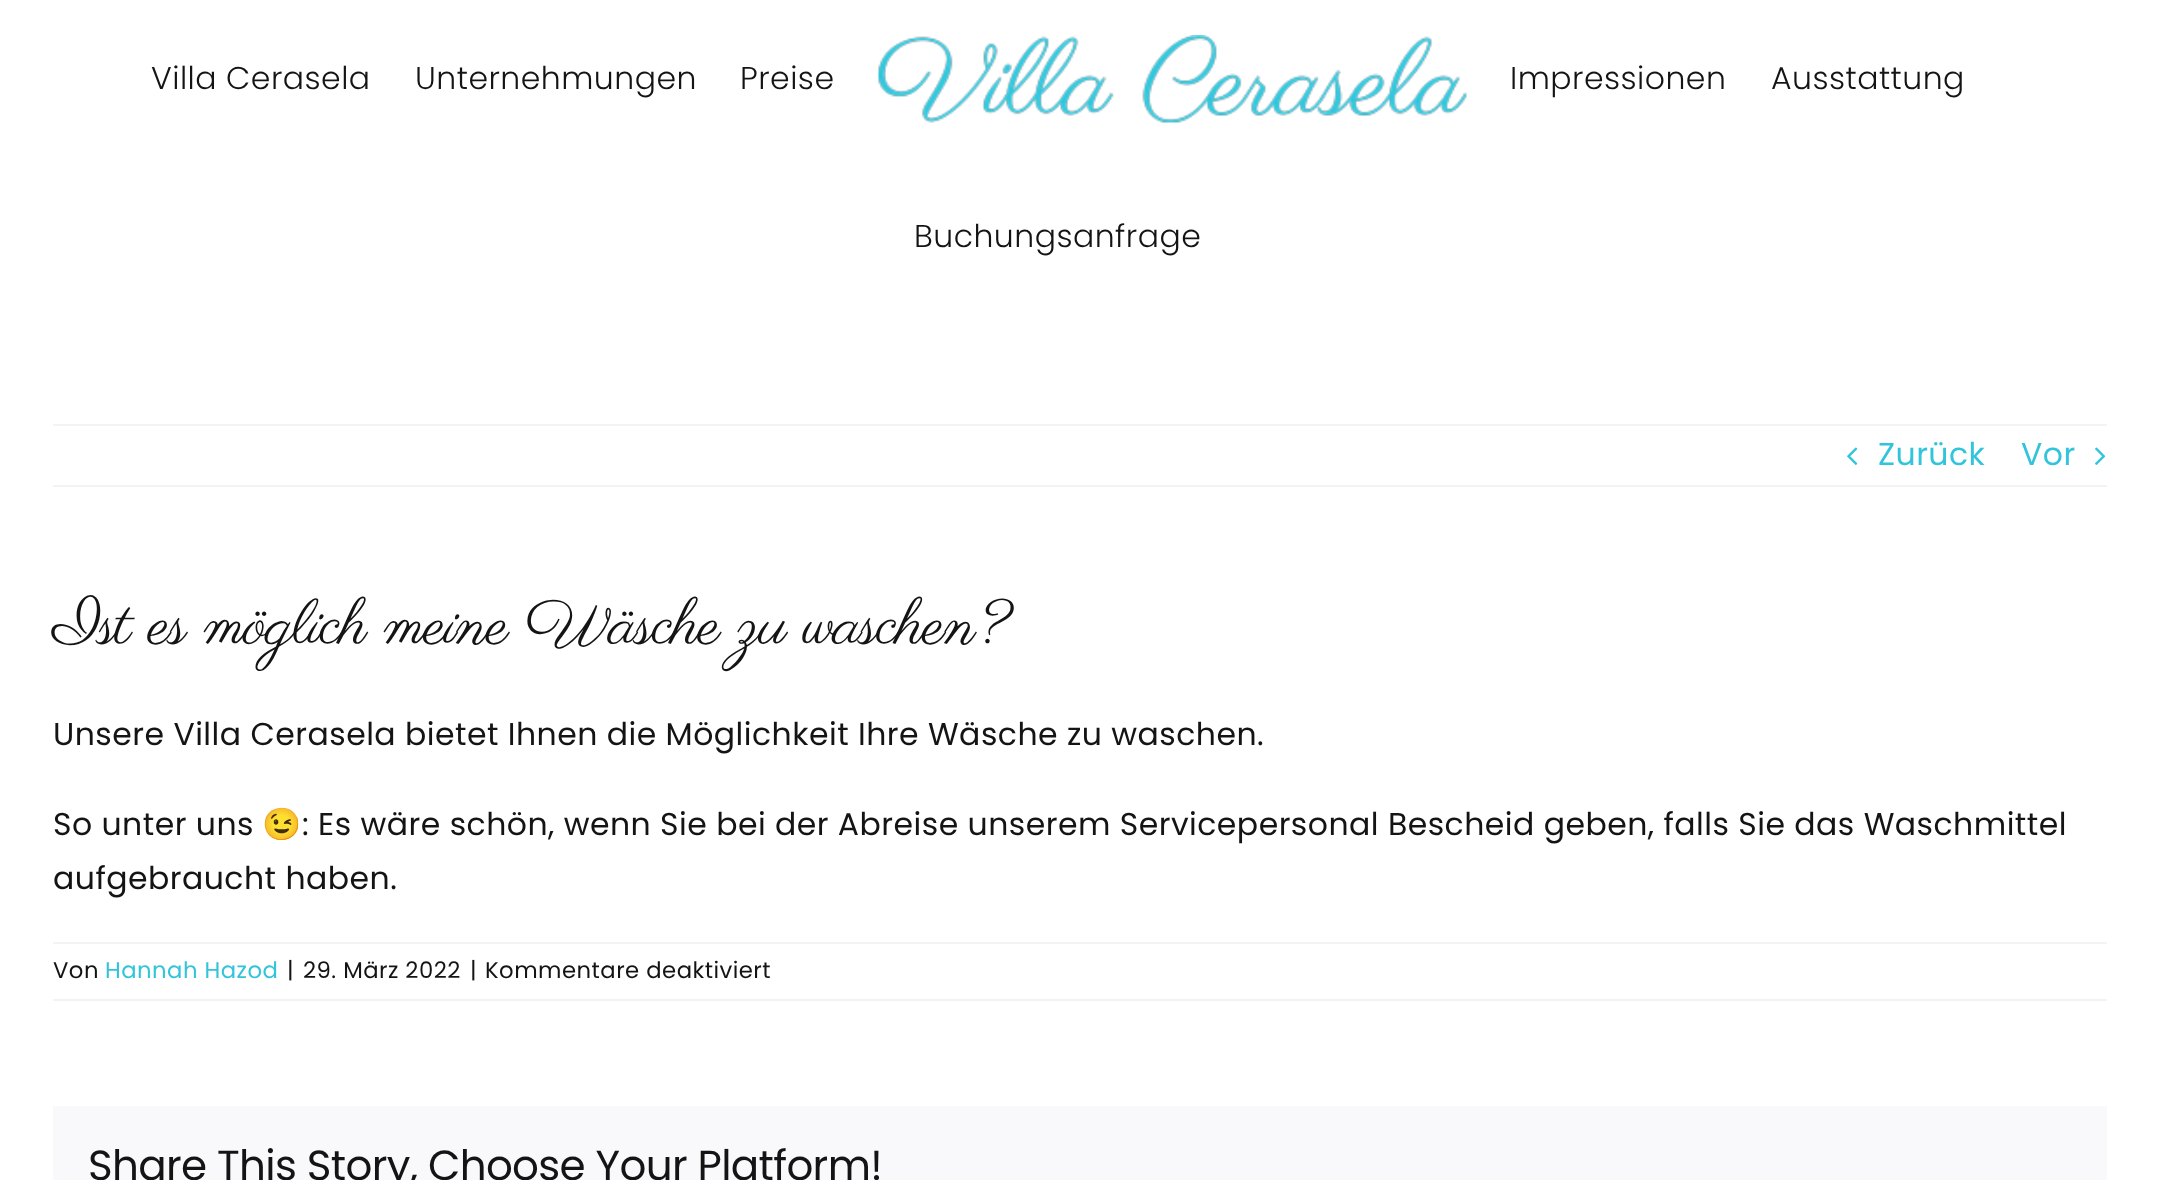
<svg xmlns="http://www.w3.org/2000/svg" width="2159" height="1180">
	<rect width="100%" height="100%" fill="#FFFFFF" />
	<g font-family="Poppins" font-size="31.5" font-weight="300" letter-spacing="0.47" fill="#141414">
		<text x="151" y="89">Villa Cerasela</text>
		<text x="415" y="89">Unternehmungen</text>
		<text x="740" y="89">Preise</text>
	</g>
	<image x="878" y="35" width="589" height="88" href="assets/img1.png" />
	<g font-family="Poppins" font-size="31.5" font-weight="300" letter-spacing="0.47" fill="#141414">
		<text x="1510" y="89">Impressionen</text>
		<text x="1771" y="89">Ausstattung</text>
		<text x="914" y="247">Buchungsanfrage</text>
	</g>
	<rect x="53" y="424" width="2054" height="2" fill="#F2F3F5" />
	<rect x="53" y="485" width="2054" height="2" fill="#F2F3F5" />
	<image x="1847" y="447" width="11" height="18" href="assets/img2.png" />
	<g font-family="Poppins" font-size="31.5" letter-spacing="0.47" fill="#32C4DA">
		<text x="1878" y="465">Zurück</text>
		<text x="2021" y="465">Vor</text>
	</g>
	<image x="2095" y="447" width="11" height="18" href="assets/img3.png" />
	<text x="53" y="643" font-family="Parisienne" font-size="63" letter-spacing="-0.95" fill="#141414">Ist es möglich meine Wäsche zu waschen?</text>
	<g font-family="Poppins" font-size="31.5" letter-spacing="0.47" fill="#141414">
		<text x="53" y="745">Unsere Villa Cerasela bietet Ihnen die Möglichkeit Ihre Wäsche zu waschen.</text>
		<text x="53" y="835">So unter uns</text>
	</g>
	<text x="262" y="835" font-family="Noto Color Emoji" font-size="31.5" letter-spacing="0.47" fill="#141414">😉</text>
	<g font-family="Poppins" font-size="31.5" letter-spacing="0.47" fill="#141414">
		<text x="302" y="835">: Es wäre schön, wenn Sie bei der Abreise unserem Servicepersonal Bescheid geben, falls Sie das Waschmittel</text>
		<text x="53" y="889">aufgebraucht haben.</text>
	</g>
	<rect x="53" y="942" width="2054" height="2" fill="#F2F3F5" />
	<rect x="53" y="999" width="2054" height="2" fill="#F2F3F5" />
	<text x="53" y="978" font-family="Poppins" font-size="22.75" letter-spacing="0.47" fill="#141414">Von</text>
	<text x="105" y="978" font-family="Poppins" font-size="22.75" letter-spacing="0.47" fill="#32C4DA">Hannah Hazod</text>
	<g font-family="Poppins" font-size="22.75" letter-spacing="0.47" fill="#141414">
		<text x="287" y="978">|</text>
		<text x="303" y="978">29. März 2022</text>
		<text x="470" y="978">|</text>
		<text x="485" y="978">Kommentare deaktiviert</text>
	</g>
	<rect x="53" y="1106" width="2054" height="74" fill="#F9F9FB" />
	<text x="88" y="1180" font-family="Poppins" font-size="42" letter-spacing="-0.65" fill="#141414">Share This Story, Choose Your Platform!</text>
</svg>
